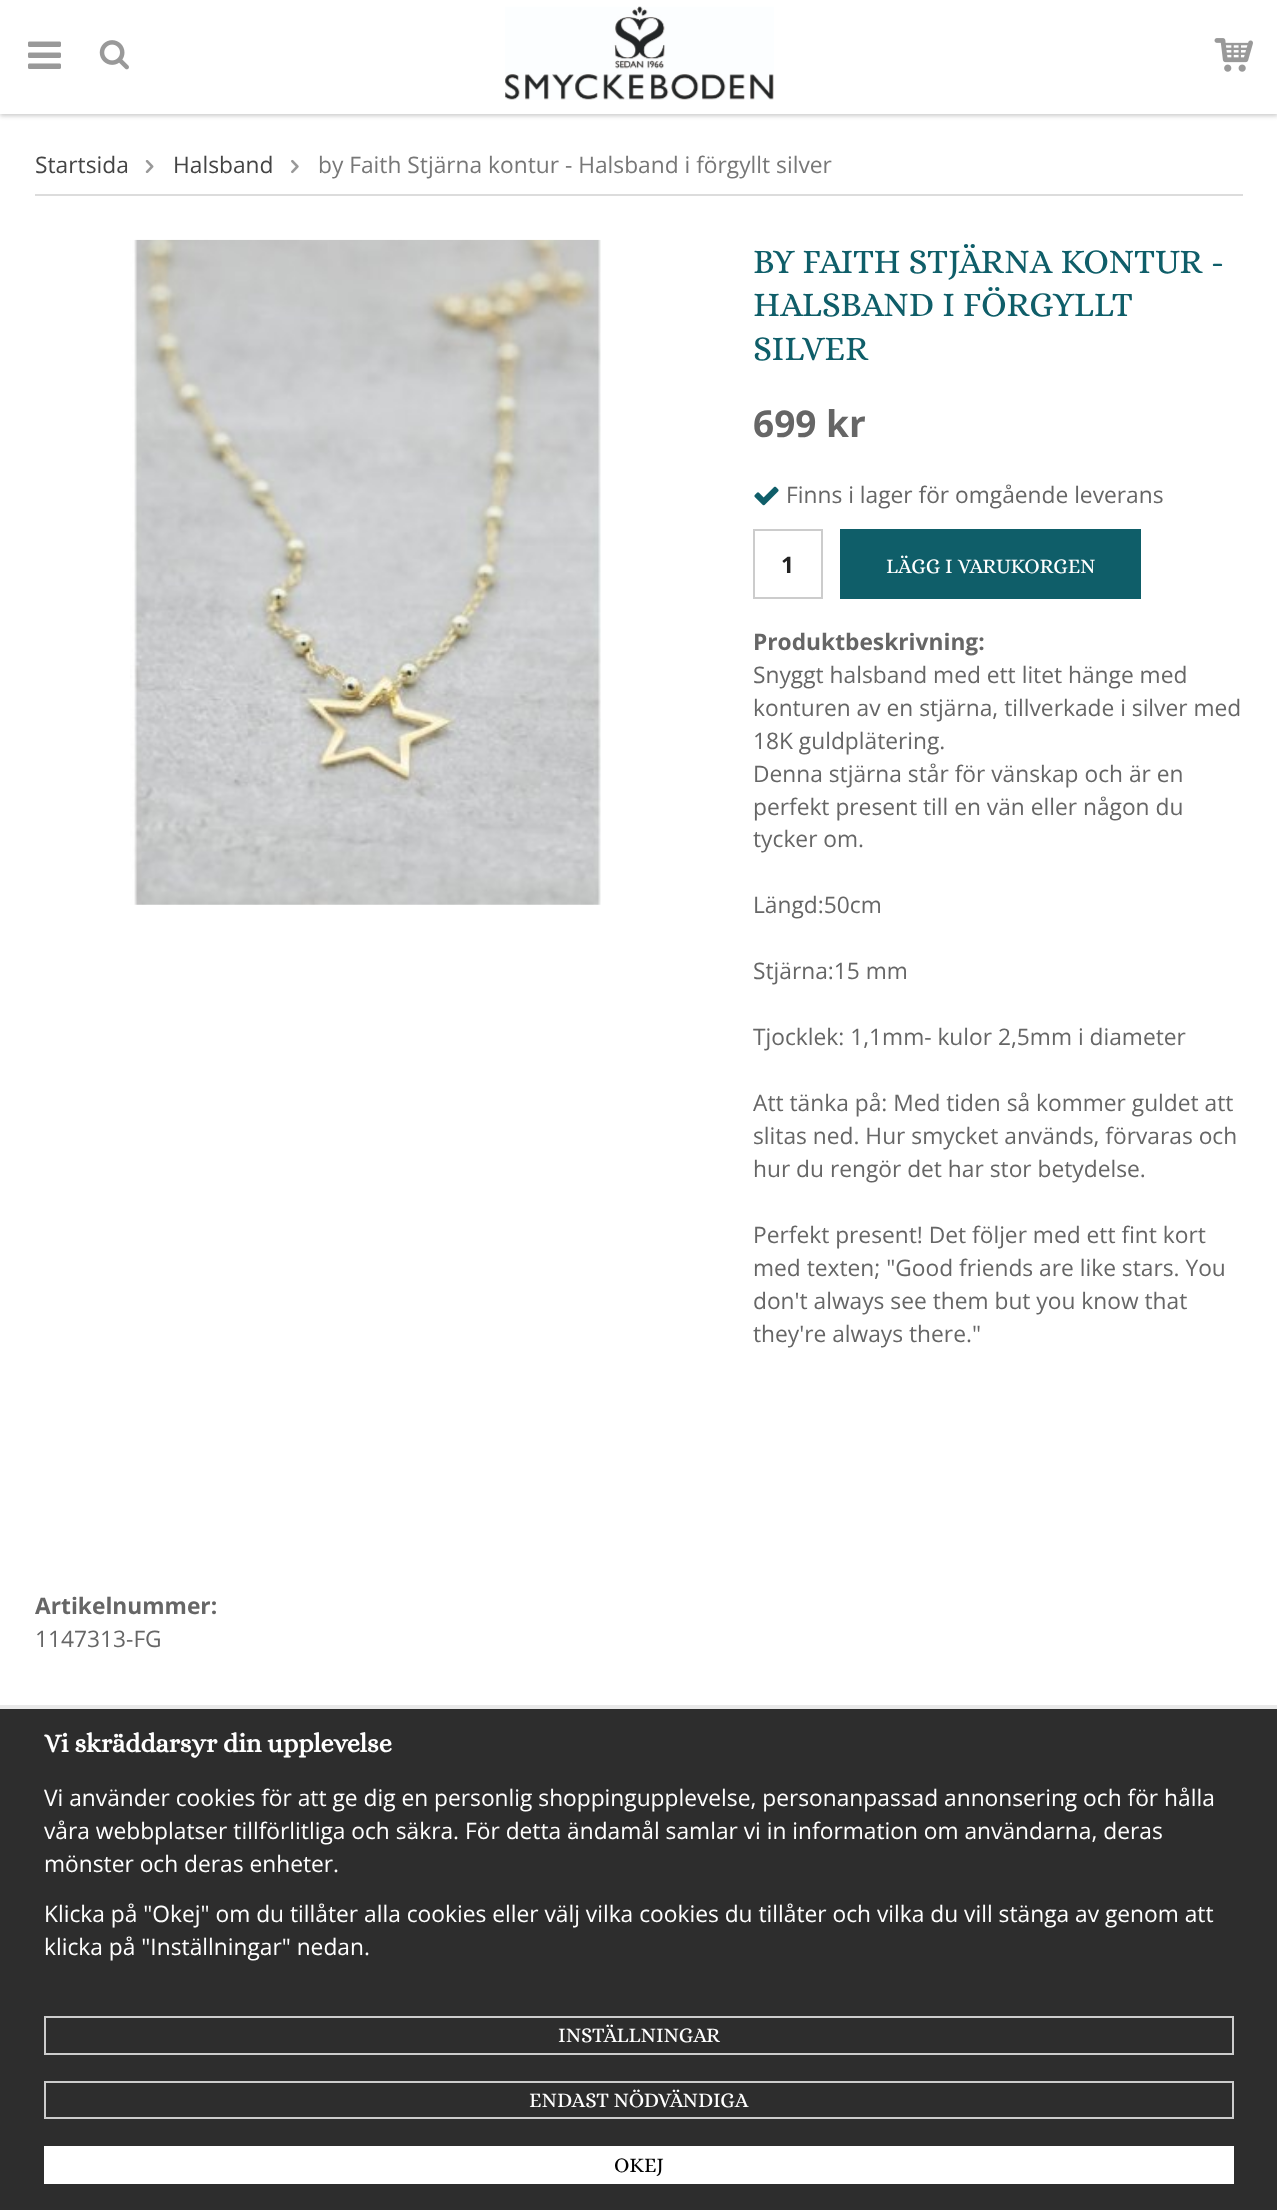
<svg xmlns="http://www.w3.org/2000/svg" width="1277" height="2210">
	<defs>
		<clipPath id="clip1"><rect x="753" y="240" width="490" height="1316" /></clipPath>
	</defs>
	<rect width="100%" height="100%" fill="#FFFFFF" />
	<rect x="0" y="2" width="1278" height="114" fill="#000000" fill-opacity="0.2" filter="blur(2px)" />
	<rect x="0" y="0" width="1277" height="114" fill="#FFFFFF" />
	<image x="28" y="41" width="33" height="28" href="assets/img1.png" />
	<image x="99" y="40" width="30" height="30" href="assets/img2.png" />
	<image x="505" y="6" width="269" height="94" href="assets/img3.png" />
	<image x="1214" y="38" width="39" height="34" href="assets/img4.png" />
	<rect x="35" y="194" width="1208" height="2" fill="#DCDCDC" />
	<text x="35" y="173" font-family="Open Sans" font-size="22.75" fill="#444444">Startsida</text>
	<image x="145" y="160" width="9" height="13" href="assets/img5.png" />
	<text x="173" y="173" font-family="Open Sans" font-size="22.75" fill="#444444">Halsband</text>
	<image x="291" y="159" width="8" height="15" href="assets/img6.png" />
	<text x="318" y="173" font-family="Open Sans" font-size="22.75" fill="#777777">by Faith Stjärna kontur - Halsband i förgyllt silver</text>
	<image x="130" y="239" width="471" height="666" href="assets/img7.png" />
	<g font-family="Alice" font-size="35" fill="#0F5E69">
		<text x="753" y="273">BY FAITH STJÄRNA KONTUR -</text>
		<text x="753" y="316">HALSBAND I FÖRGYLLT</text>
		<text x="753" y="360">SILVER</text>
	</g>
	<text x="753" y="437" font-family="Open Sans" font-size="37" font-weight="700" fill="#666666">699 kr</text>
	<image x="754" y="486" width="25" height="20" href="assets/img8.png" />
	<text x="786" y="503" font-family="Open Sans" font-size="22.75" fill="#666666">Finns i lager för omgående leverans</text>
	<rect x="754" y="530" width="68" height="68" fill="none" stroke="#CCCCCC" stroke-width="2" />
	<text x="781" y="573" font-family="Open Sans" font-size="22.75" font-weight="700" fill="#222222">1</text>
	<rect x="840" y="529" width="301" height="70" fill="#0F5E69" />
	<text x="886" y="573" font-family="Alice" font-size="21" fill="#FFFFFF">LÄGG I VARUKORGEN</text>
	<text x="753" y="650" font-family="Open Sans" font-size="22.75" font-weight="700" fill="#666666">Produktbeskrivning:</text>
	<g font-family="Open Sans" font-size="22.75" fill="#666666">
		<text x="753" y="683">Snyggt halsband med ett litet hänge med</text>
		<text x="753" y="716">konturen av en stjärna, tillverkade i silver med</text>
		<text x="753" y="749">18K guldplätering.</text>
		<text x="753" y="782">Denna stjärna står för vänskap och är en</text>
		<text x="753" y="815">perfekt present till en vän eller någon du</text>
		<text x="753" y="847">tycker om.</text>
		<text x="753" y="913">Längd:50cm</text>
		<text x="753" y="979">Stjärna:15 mm</text>
	</g>
	<g clip-path="url(#clip1)">
		<text x="753" y="1045" font-family="Open Sans" font-size="22.75" fill="#666666">Tjocklek: 1,1mm- kulor 2,5mm i diameter</text>
	</g>
	<g font-family="Open Sans" font-size="22.75" fill="#666666">
		<text x="753" y="1111">Att tänka på: Med tiden så kommer guldet att</text>
		<text x="753" y="1144">slitas ned. Hur smycket används, förvaras och</text>
		<text x="753" y="1177">hur du rengör det har stor betydelse.</text>
		<text x="753" y="1243">Perfekt present! Det följer med ett fint kort</text>
		<text x="753" y="1276">med texten; "Good friends are like stars. You</text>
		<text x="753" y="1309">don't always see them but you know that</text>
		<text x="753" y="1342">they're always there."</text>
	</g>
	<text x="35" y="1614" font-family="Open Sans" font-size="22.75" font-weight="700" fill="#666666">Artikelnummer:</text>
	<text x="35" y="1647" font-family="Open Sans" font-size="22.75" fill="#666666">1147313-FG</text>
	<rect x="0" y="1709" width="1277" height="501" fill="#2D2D2D" />
	<rect x="0" y="1705" width="1277" height="4" fill="#E9E9E9" />
	<text x="44" y="1752" font-family="Alice" font-size="26.25" font-weight="700" fill="#FFFFFF">Vi skräddarsyr din upplevelse</text>
	<g font-family="Open Sans" font-size="22.75" fill="#FFFFFF">
		<text x="44" y="1806">Vi använder cookies för att ge dig en personlig shoppingupplevelse, personanpassad annonsering och för hålla</text>
		<text x="44" y="1839">våra webbplatser tillförlitliga och säkra. För detta ändamål samlar vi in information om användarna, deras</text>
		<text x="44" y="1872">mönster och deras enheter.</text>
		<text x="44" y="1922">Klicka på "Okej" om du tillåter alla cookies eller välj vilka cookies du tillåter och vilka du vill stänga av genom att</text>
		<text x="44" y="1955">klicka på "Inställningar" nedan.</text>
	</g>
	<rect x="45" y="2017" width="1188" height="37" fill="none" stroke="#CCCCCC" stroke-width="2" />
	<text x="558" y="2042" font-family="Alice" font-size="21" fill="#FFFFFF">INSTÄLLNINGAR</text>
	<rect x="45" y="2082" width="1188" height="36" fill="none" stroke="#CCCCCC" stroke-width="2" />
	<text x="529" y="2107" font-family="Alice" font-size="21" fill="#FFFFFF">ENDAST NÖDVÄNDIGA</text>
	<rect x="44" y="2146" width="1190" height="38" fill="#FFFFFF" />
	<text x="614" y="2172" font-family="Alice" font-size="21" fill="#000000">OKEJ</text>
</svg>
